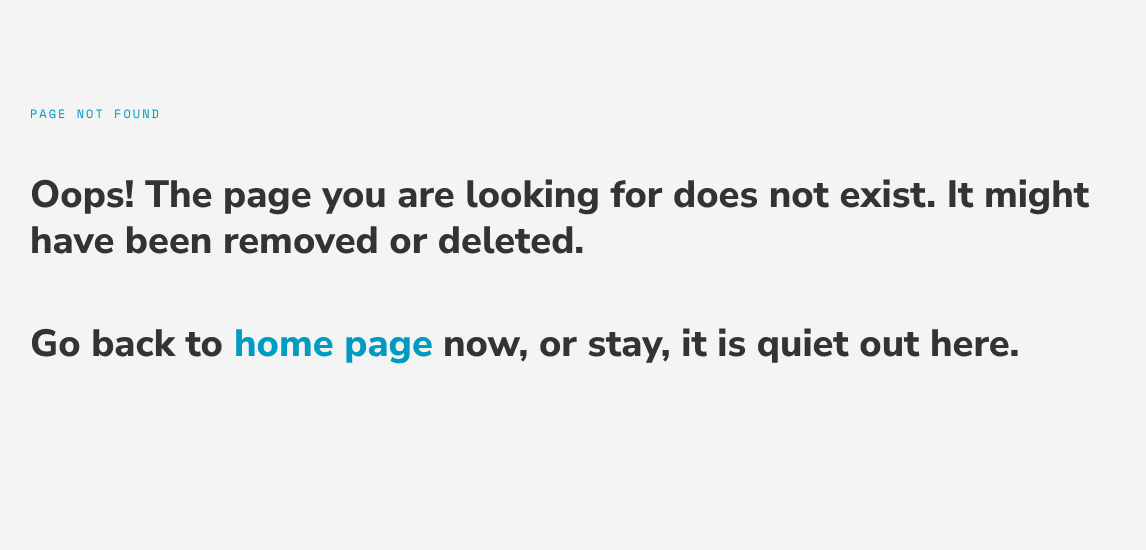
<svg xmlns="http://www.w3.org/2000/svg" width="1146" height="550">
	<rect width="100%" height="100%" fill="#F4F4F4" />
	<text x="30" y="118" font-family="Space Mono" font-size="12" letter-spacing="2" fill="#009BC1">PAGE NOT FOUND</text>
	<g font-family="Nunito Sans" font-size="38" font-weight="800" fill="#333333">
		<text x="30" y="207">Oops! The page you are looking for does not exist. It might</text>
		<text x="30" y="253">have been removed or deleted.</text>
		<text x="30" y="356">Go back to</text>
	</g>
	<text x="234" y="356" font-family="Nunito Sans" font-size="38" font-weight="800" fill="#009BC1">home page</text>
	<text x="443" y="356" font-family="Nunito Sans" font-size="38" font-weight="800" fill="#333333">now, or stay, it is quiet out here.</text>
</svg>
